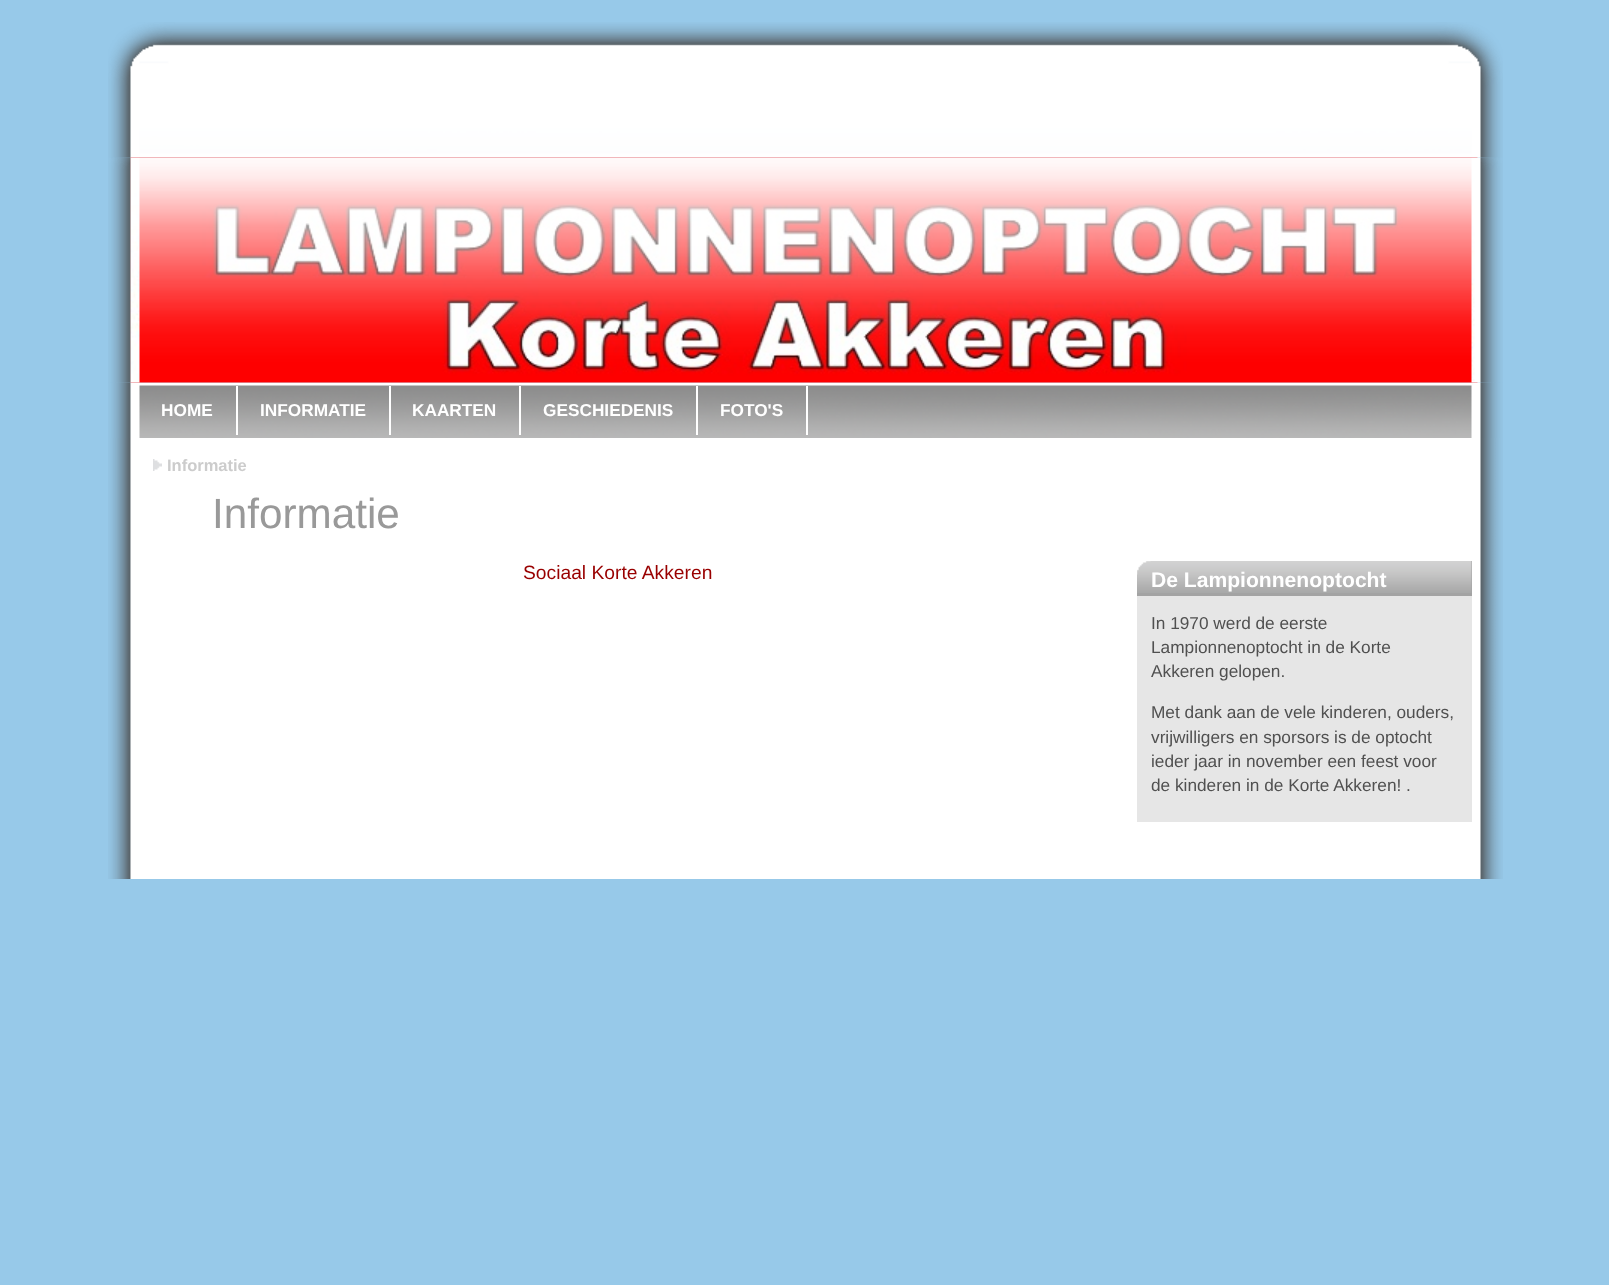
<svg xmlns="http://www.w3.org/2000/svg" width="1609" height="1285">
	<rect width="100%" height="100%" fill="#97C9E9" />
	<image x="108" y="22" width="1395" height="136" href="assets/img1.png" />
	<image x="108" y="382" width="1395" height="56" href="assets/img4.png" />
	<image x="130" y="157" width="1348" height="226" href="assets/img2.png" />
	<image x="108" y="157" width="1395" height="226" href="assets/img3.png" />
	<rect x="236" y="386" width="2" height="49" fill="#FFFFFF" />
	<text x="161" y="416" font-family="Liberation Sans" font-size="17.25" font-weight="700" fill="#FFFFFF">HOME</text>
	<rect x="389" y="386" width="2" height="49" fill="#FFFFFF" />
	<text x="260" y="416" font-family="Liberation Sans" font-size="17.25" font-weight="700" fill="#FFFFFF">INFORMATIE</text>
	<rect x="519" y="386" width="2" height="49" fill="#FFFFFF" />
	<text x="412" y="416" font-family="Liberation Sans" font-size="17.25" font-weight="700" fill="#FFFFFF">KAARTEN</text>
	<rect x="696" y="386" width="2" height="49" fill="#FFFFFF" />
	<text x="543" y="416" font-family="Liberation Sans" font-size="17.25" font-weight="700" fill="#FFFFFF">GESCHIEDENIS</text>
	<rect x="806" y="386" width="2" height="49" fill="#FFFFFF" />
	<text x="720" y="416" font-family="Liberation Sans" font-size="17.25" font-weight="700" fill="#FFFFFF">FOTO'S</text>
	<image x="108" y="438" width="1395" height="441" href="assets/img5.png" />
	<image x="153" y="459" width="9" height="12" href="assets/img6.png" />
	<text x="167" y="471" font-family="Liberation Sans" font-size="16.5" font-weight="700" fill="#CCCCCC">Informatie</text>
	<text x="212" y="528" font-family="Liberation Sans" font-size="42.25" fill="#999999">Informatie</text>
	<text x="523" y="579" font-family="Liberation Sans" font-size="19.25" fill="#990000">Sociaal Korte Akkeren</text>
	<rect x="1137" y="596" width="335" height="226" fill="#E6E6E6" />
	<rect x="1137" y="561" width="335" height="35" fill="#A3A3A3" />
	<image x="1137" y="561" width="335" height="32" href="assets/img8.png" />
	<image x="1137" y="561" width="14" height="14" href="assets/img7.png" />
	<text x="1151" y="587" font-family="Liberation Sans" font-size="21.1" font-weight="700" fill="#FFFFFF">De Lampionnenoptocht</text>
	<g font-family="Liberation Sans" font-size="17.25" fill="#505050">
		<text x="1151" y="629">In 1970 werd de eerste</text>
		<text x="1151" y="653">Lampionnenoptocht in de Korte</text>
		<text x="1151" y="677">Akkeren gelopen.</text>
		<text x="1151" y="718">Met dank aan de vele kinderen, ouders,</text>
		<text x="1151" y="743">vrijwilligers en sporsors is de optocht</text>
		<text x="1151" y="767">ieder jaar in november een feest voor</text>
		<text x="1151" y="791">de kinderen in de Korte Akkeren! .</text>
	</g>
</svg>
